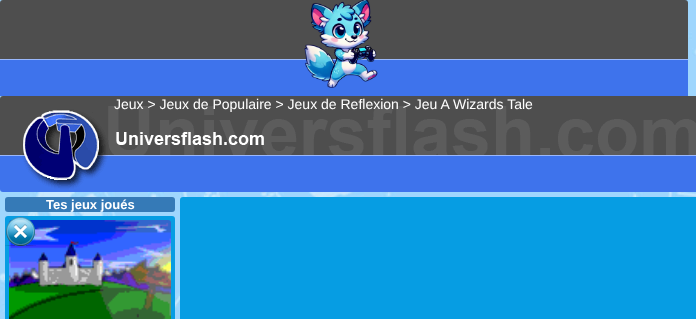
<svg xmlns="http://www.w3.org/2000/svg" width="696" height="319">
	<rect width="100%" height="100%" fill="#FFFFFF" />
	<image x="0" y="0" width="696" height="319" href="assets/img1.png" />
	<image x="0" y="0" width="688" height="96" href="assets/img2.png" />
	<image x="304" y="0" width="74" height="88" href="assets/img3.png" />
	<image x="0" y="96" width="696" height="96" href="assets/img4.png" />
	<text x="114" y="109" font-family="Liberation Sans" font-size="14" fill="#FFFFFF">Jeux &gt; Jeux de Populaire &gt; Jeux de Reflexion &gt; Jeu A Wizards Tale</text>
	<rect x="5" y="197" width="170" height="15" rx="3" fill="#357AB7" />
	<text x="46" y="209" font-family="Liberation Sans" font-size="13" font-weight="700" fill="#FFFFFF">Tes jeux joués</text>
	<rect x="5" y="216" width="170" height="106" rx="3" fill="#069DE3" />
	<image x="9" y="220" width="162" height="99" href="assets/img5.png" />
	<image x="5" y="217" width="31" height="29" href="assets/img6.png" />
	<rect x="180" y="197" width="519" height="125" rx="3" fill="#069DE3" />
</svg>
